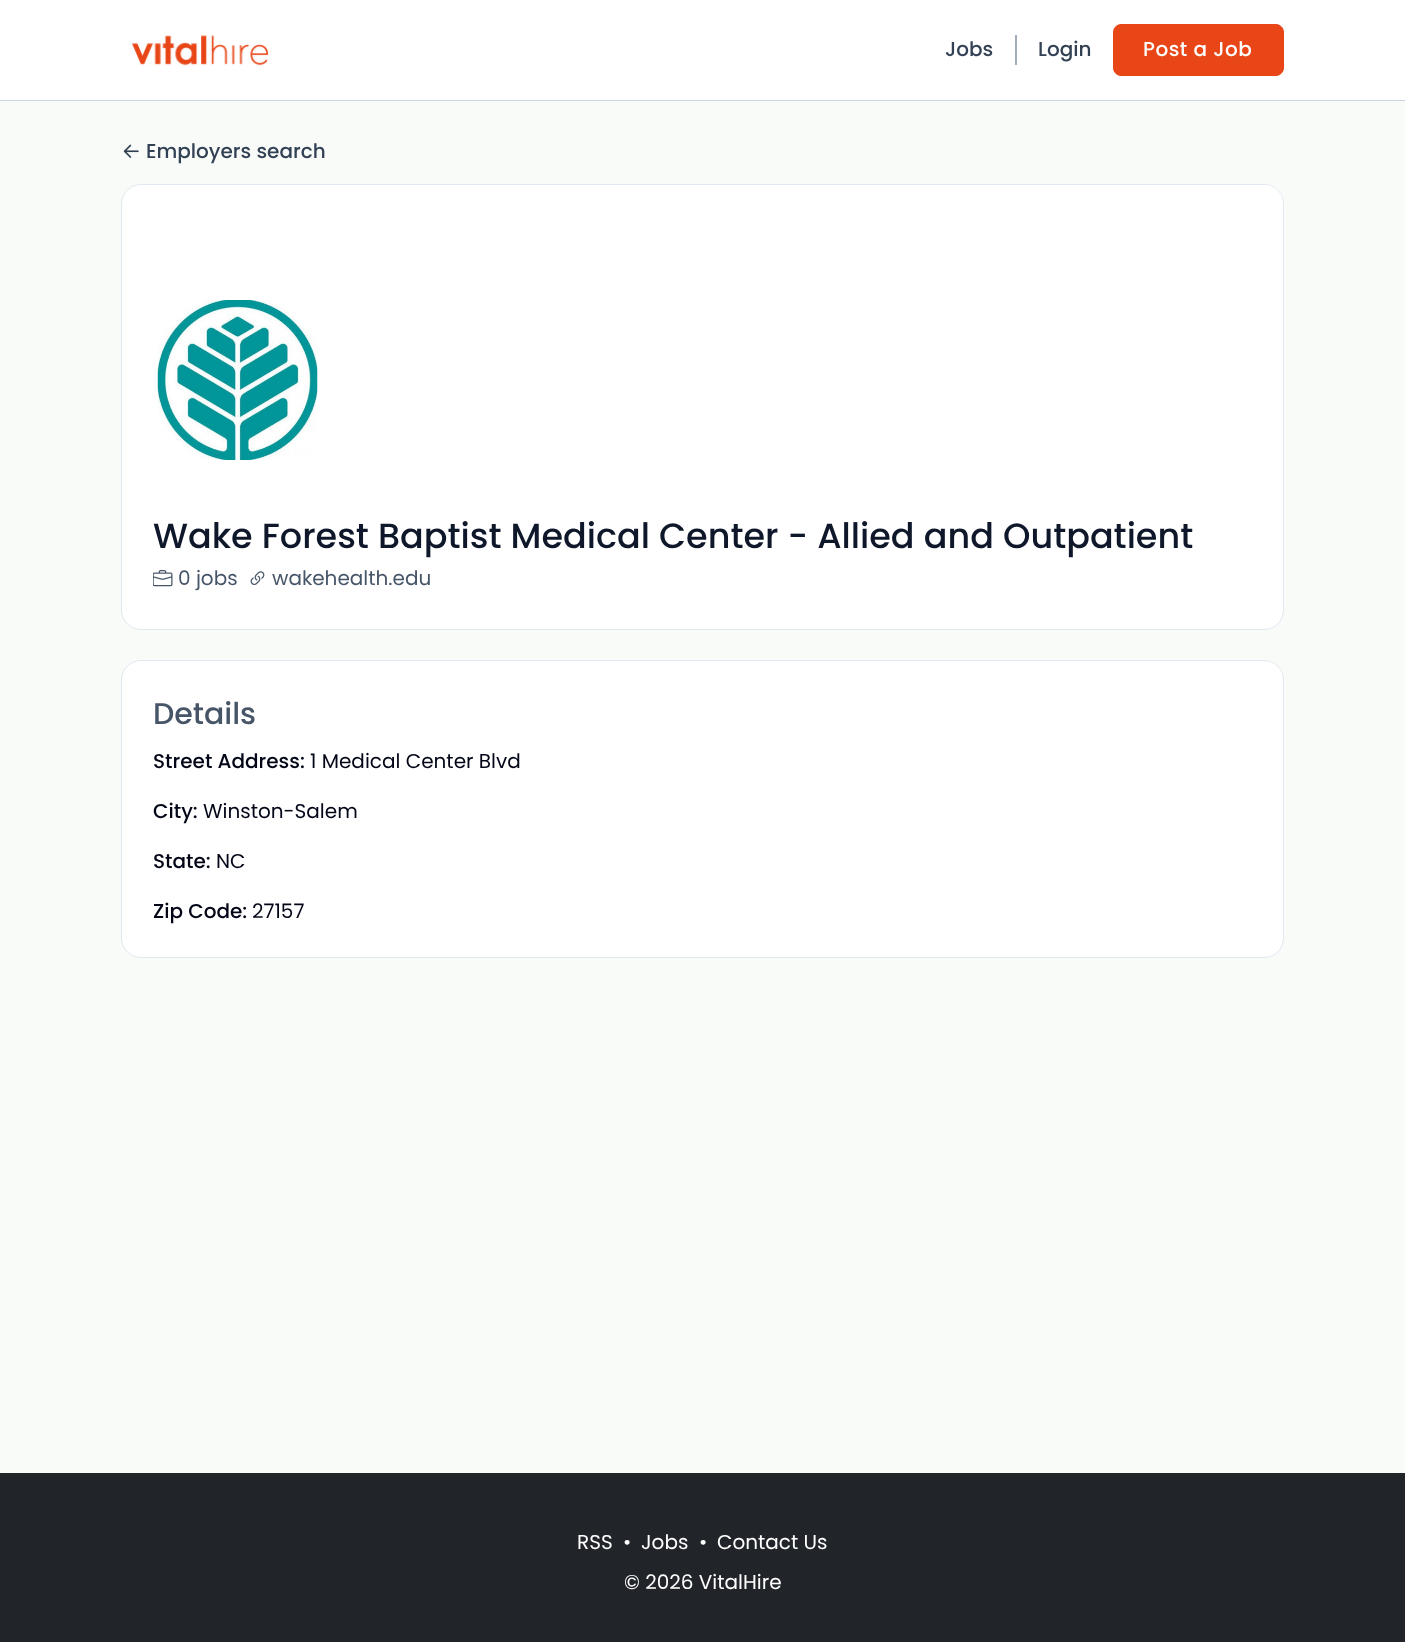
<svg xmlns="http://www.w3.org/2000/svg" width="1405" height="1642">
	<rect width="100%" height="100%" fill="#F9FBF9" />
	<rect x="0" y="0" width="1405" height="100" fill="#FFFFFF" />
	<rect x="0" y="100" width="1405" height="1" fill="#CBD5E1" />
	<image x="132" y="35" width="137" height="31" href="assets/img1.png" />
	<text x="945" y="56" font-family="Poppins" font-size="20" font-weight="500" fill="#334155">Jobs</text>
	<path d="M1016 35V65" fill="none" stroke="#64748B" stroke-width="1.2" />
	<text x="1038" y="56" font-family="Poppins" font-size="20" font-weight="500" fill="#334155">Login</text>
	<rect x="1113.5" y="24.5" width="170" height="51" rx="7.5" fill="#E84617" stroke="#E84617" />
	<text x="1143" y="56" font-family="Poppins" font-size="20" font-weight="500" letter-spacing="0.5" fill="#FFFFFF">Post a Job</text>
	<image x="123" y="144" width="16" height="14" href="assets/img2.png" />
	<text x="146" y="158" font-family="Poppins" font-size="20" font-weight="500" fill="#334155">Employers search</text>
	<rect x="121.5" y="184.5" width="1162" height="445" rx="19.5" fill="#FFFFFF" stroke="#E2E8F0" />
	<path d="M142 185H1264C1274.5 185 1283 193.5 1283 204V435H123V204C123 193.5 131.5 185 142 185Z" fill="#FFFFFF" />
	<image x="157" y="300" width="161" height="160" href="assets/img3.png" />
	<text x="153" y="548" font-family="Poppins" font-size="35" font-weight="500" fill="#0F172A">Wake Forest Baptist Medical Center - Allied and Outpatient</text>
	<image x="153" y="570" width="20" height="17" href="assets/img4.png" />
	<text x="178" y="585" font-family="Poppins" font-size="20" fill="#475569">0 jobs</text>
	<image x="250" y="571" width="15" height="14" href="assets/img5.png" />
	<text x="272" y="585" font-family="Poppins" font-size="20" fill="#475569">wakehealth.edu</text>
	<rect x="121.5" y="660.5" width="1162" height="297" rx="19.5" fill="#FFFFFF" stroke="#E2E8F0" />
	<text x="153" y="724" font-family="Poppins" font-size="30" font-weight="500" fill="#475569">Details</text>
	<text x="153" y="768" font-family="Poppins" font-size="20" font-weight="500" fill="#020617">Street Address:</text>
	<text x="310" y="768" font-family="Poppins" font-size="20" fill="#020617">1 Medical Center Blvd</text>
	<text x="153" y="818" font-family="Poppins" font-size="20" font-weight="500" fill="#020617">City:</text>
	<text x="203" y="818" font-family="Poppins" font-size="20" fill="#020617">Winston-Salem</text>
	<text x="153" y="868" font-family="Poppins" font-size="20" font-weight="500" fill="#020617">State:</text>
	<text x="216" y="868" font-family="Poppins" font-size="20" fill="#020617">NC</text>
	<text x="153" y="918" font-family="Poppins" font-size="20" font-weight="500" fill="#020617">Zip Code:</text>
	<text x="252" y="918" font-family="Poppins" font-size="20" fill="#020617">27157</text>
	<rect x="0" y="1473" width="1405" height="169" fill="#212529" />
	<g font-family="Poppins" font-size="20" fill="#FFFFFF">
		<text x="577" y="1549">RSS</text>
		<text x="623" y="1549">•</text>
		<text x="641" y="1549">Jobs</text>
		<text x="699" y="1549">•</text>
		<text x="717" y="1549">Contact Us</text>
		<text x="624" y="1589">© 2026 VitalHire</text>
	</g>
</svg>
